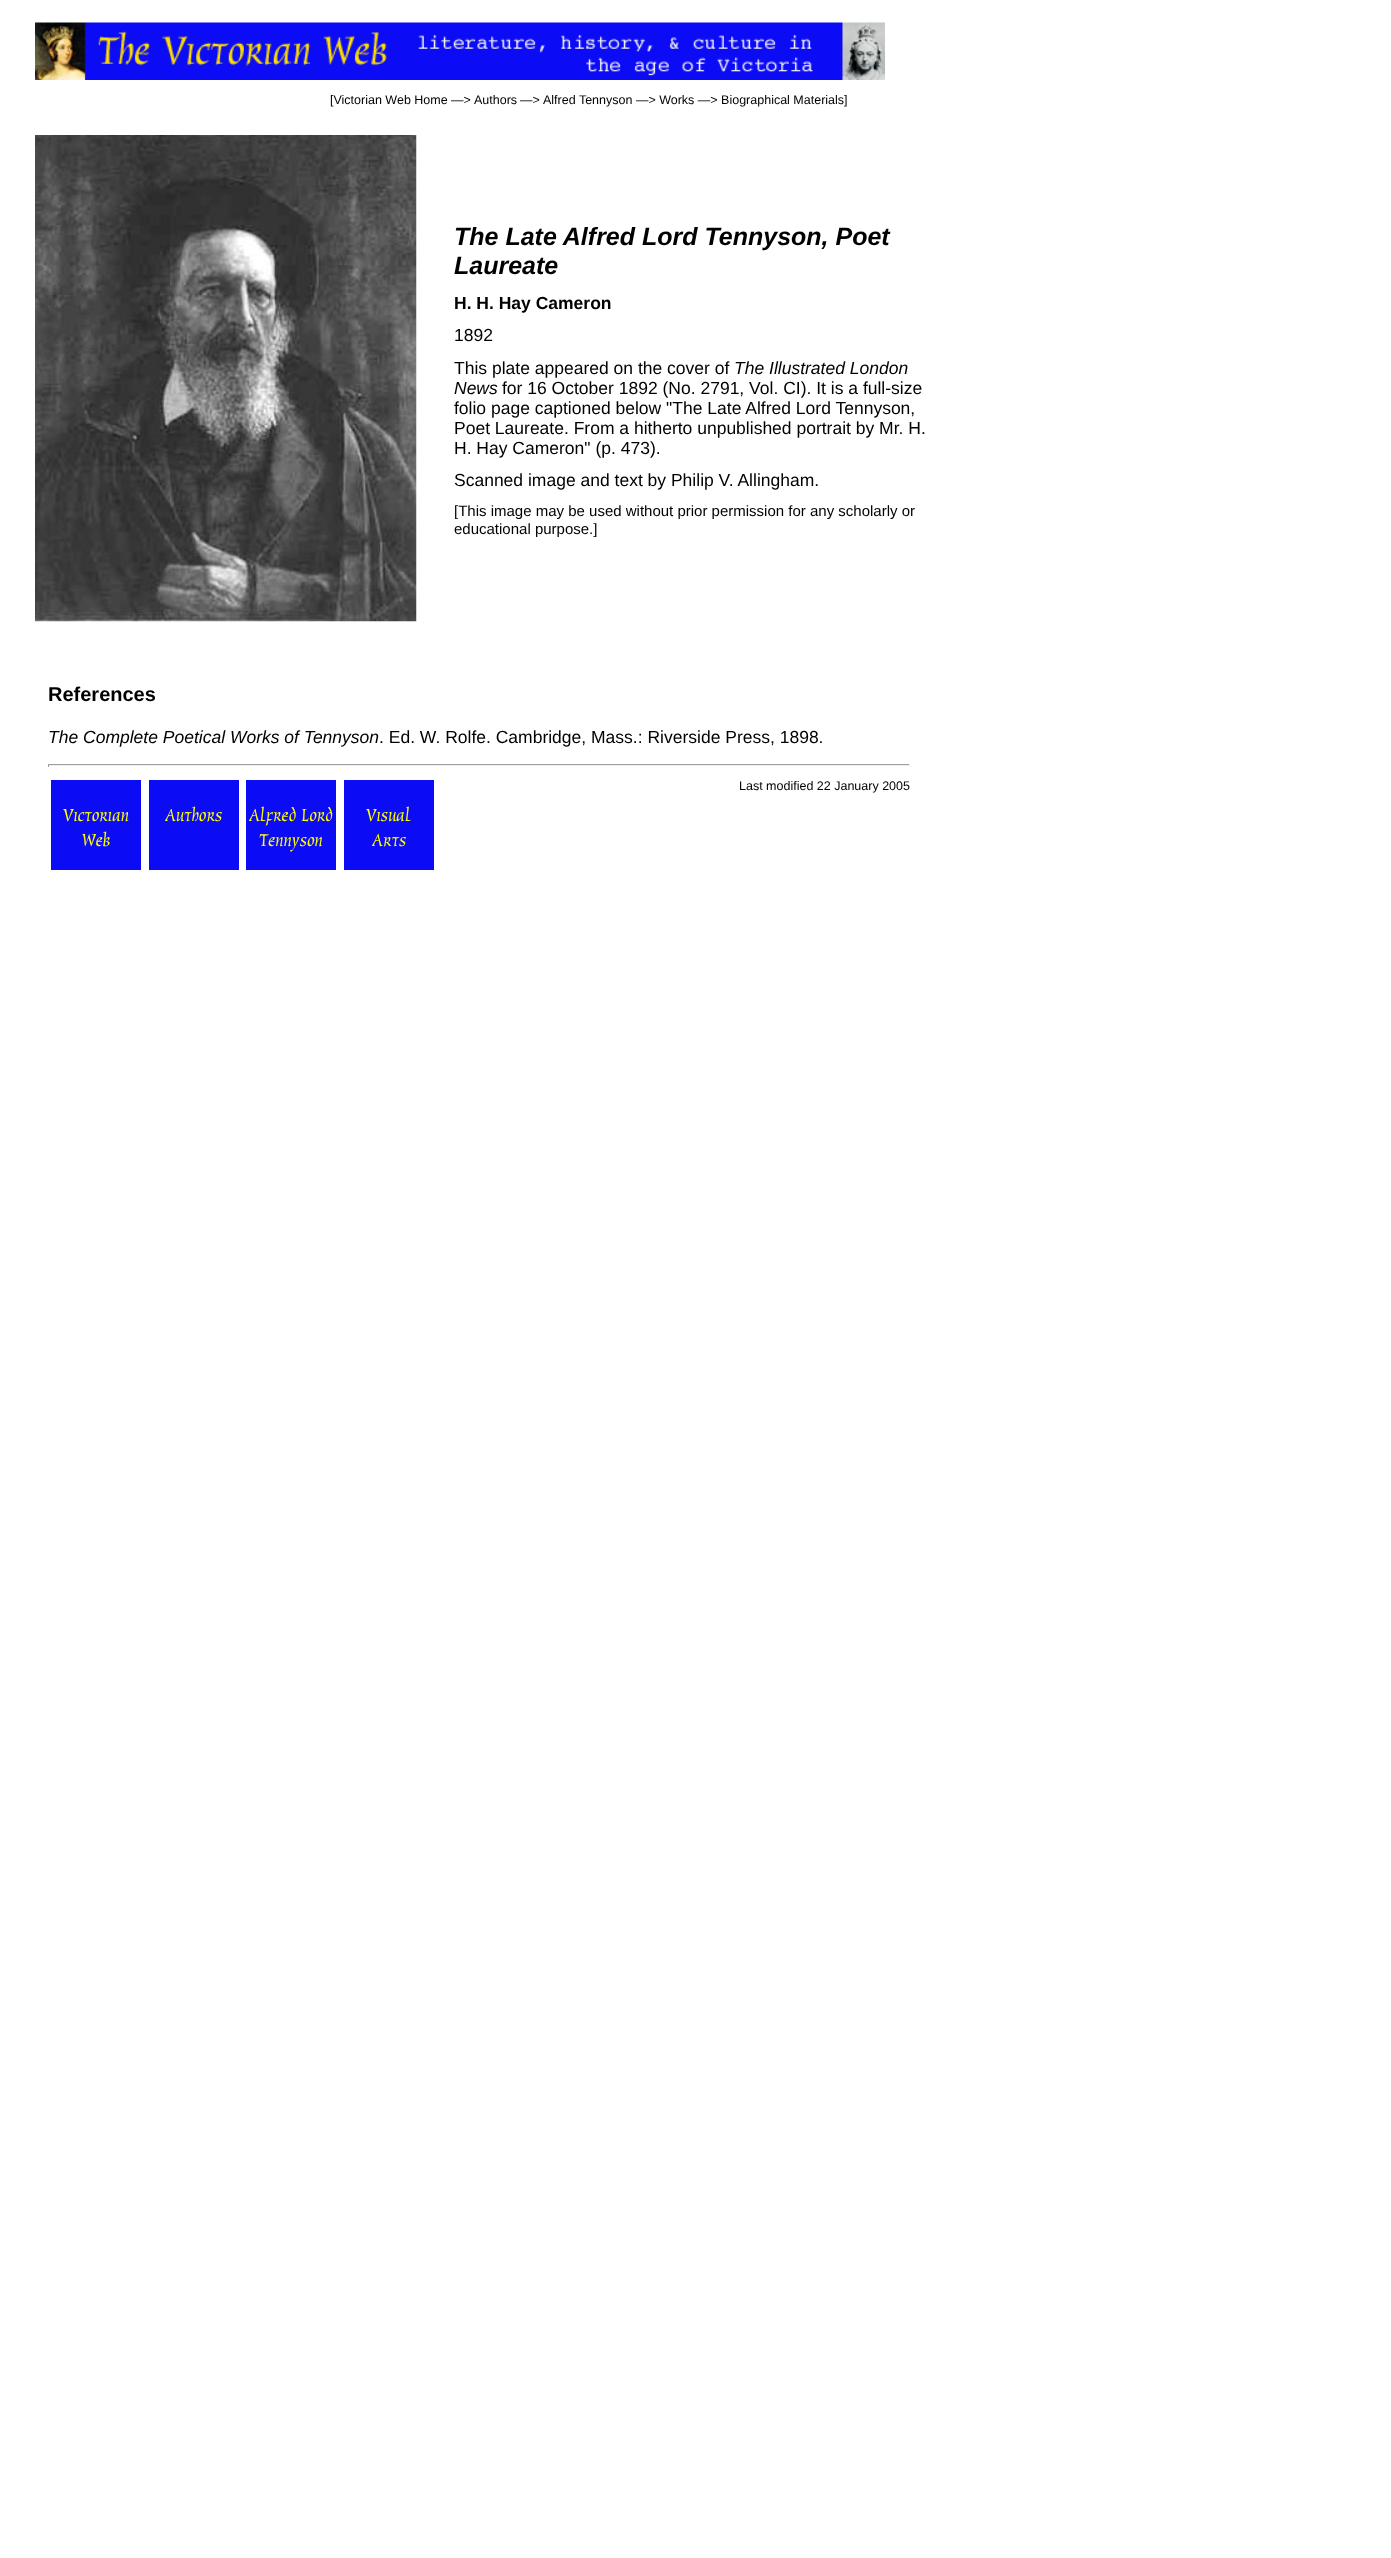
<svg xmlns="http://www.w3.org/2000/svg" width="1391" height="2558">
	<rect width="100%" height="100%" fill="#FFFFFF" />
	<image x="35" y="22" width="850" height="58" href="assets/img1.png" />
	<g font-family="Liberation Sans" font-size="12.5" fill="#000000">
		<text x="330" y="104">[Victorian Web Home</text>
		<text x="451" y="104">—&gt;</text>
		<text x="474" y="104">Authors</text>
		<text x="520" y="104">—&gt;</text>
		<text x="543" y="104">Alfred Tennyson —&gt; Works —&gt; Biographical Materials]</text>
	</g>
	<image x="35" y="135" width="382" height="487" href="assets/img2.png" />
	<g font-family="Liberation Sans" font-size="25" font-weight="700" font-style="italic" fill="#000000">
		<text x="454" y="245">The Late Alfred Lord Tennyson, Poet</text>
		<text x="454" y="274">Laureate</text>
	</g>
	<text x="454" y="309" font-family="Liberation Sans" font-size="17.5" font-weight="700" fill="#000000">H. H. Hay Cameron</text>
	<g font-family="Liberation Sans" font-size="17.5" fill="#000000">
		<text x="454" y="341">1892</text>
		<text x="454" y="374">This plate appeared on the cover of</text>
	</g>
	<g font-family="Liberation Sans" font-size="17.5" font-style="italic" fill="#000000">
		<text x="734" y="374">The Illustrated London</text>
		<text x="454" y="394">News</text>
	</g>
	<g font-family="Liberation Sans" font-size="17.5" fill="#000000">
		<text x="502" y="394">for 16 October 1892 (No. 2791, Vol. CI). It is a full-size</text>
		<text x="454" y="414">folio page captioned below "The Late Alfred Lord Tennyson,</text>
		<text x="454" y="434">Poet Laureate. From a hitherto unpublished portrait by Mr. H.</text>
		<text x="454" y="454">H. Hay Cameron" (p. 473).</text>
		<text x="454" y="486">Scanned image and text by Philip V. Allingham.</text>
	</g>
	<g font-family="Liberation Sans" font-size="15" fill="#000000">
		<text x="454" y="516">[This image may be used without prior permission for any scholarly or</text>
		<text x="454" y="534">educational purpose.]</text>
	</g>
	<text x="48" y="701" font-family="Liberation Sans" font-size="20" font-weight="700" fill="#000000">References</text>
	<text x="48" y="743" font-family="Liberation Sans" font-size="17.5" font-style="italic" fill="#000000">The Complete Poetical Works of Tennyson</text>
	<text x="379" y="743" font-family="Liberation Sans" font-size="17.5" fill="#000000">. Ed. W. Rolfe. Cambridge, Mass.: Riverside Press, 1898.</text>
	<rect x="48" y="764" width="862" height="1" fill="#9F9F9F" />
	<rect x="909" y="764" width="1" height="3" fill="#EEEEEE" />
	<rect x="48" y="765" width="862" height="1" fill="#EEEEEE" />
	<rect x="48" y="764" width="1" height="3" fill="#9F9F9F" />
	<text x="739" y="790" font-family="Liberation Sans" font-size="12.5" fill="#000000">Last modified 22 January 2005</text>
	<rect x="51" y="780" width="90" height="90" fill="#0B0BF5" />
	<g font-family="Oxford" font-size="20" fill="#FFFF00">
		<text x="63" y="821">Victorian</text>
		<text x="82" y="846">Web</text>
	</g>
	<rect x="149" y="780" width="90" height="90" fill="#0B0BF5" />
	<text x="165" y="821" font-family="Oxford" font-size="20" fill="#FFFF00">Authors</text>
	<rect x="246" y="780" width="90" height="90" fill="#0B0BF5" />
	<g font-family="Oxford" font-size="20" fill="#FFFF00">
		<text x="249" y="821">Alfred Lord</text>
		<text x="259" y="846">Tennyson</text>
	</g>
	<rect x="344" y="780" width="90" height="90" fill="#0B0BF5" />
	<g font-family="Oxford" font-size="20" fill="#FFFF00">
		<text x="366" y="821">Visual</text>
		<text x="372" y="846">Arts</text>
	</g>
</svg>
